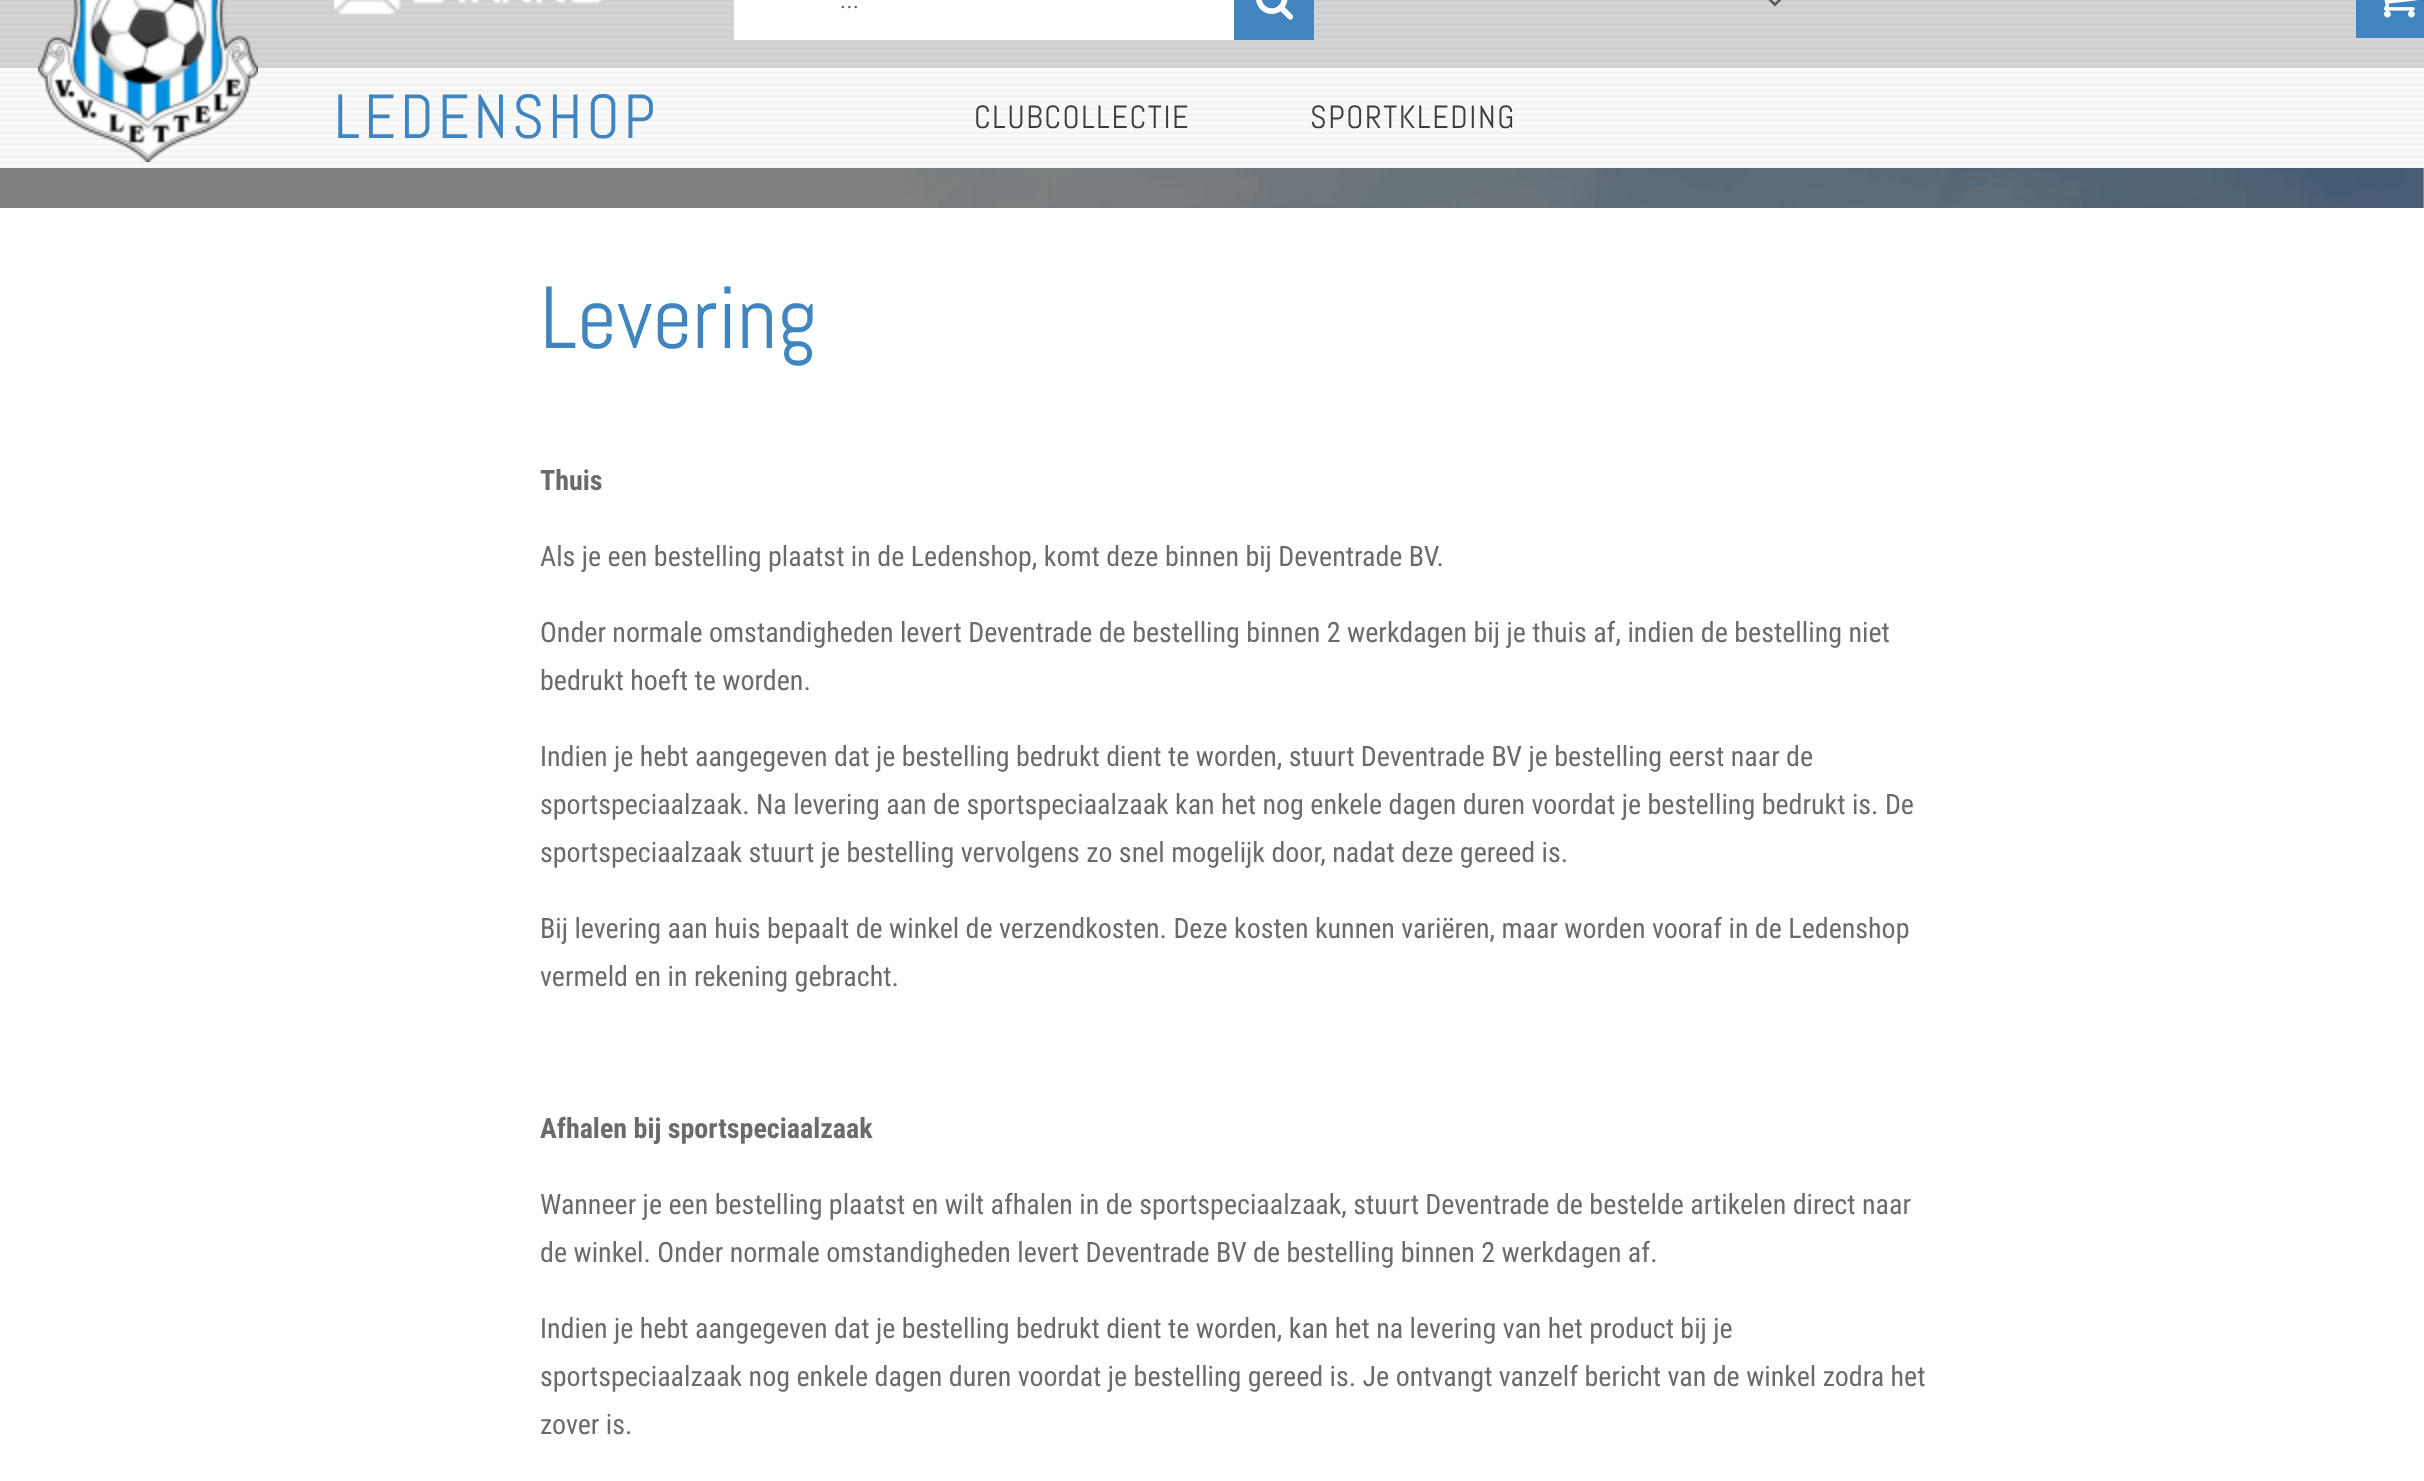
<svg xmlns="http://www.w3.org/2000/svg" width="2424" height="1481">
	<rect width="100%" height="100%" fill="#FFFFFF" />
	<image x="0" y="168" width="2424" height="40" href="assets/img1.png" />
	<image x="0" y="0" width="2424" height="68" href="assets/img2.png" />
	<image x="0" y="68" width="40" height="100" href="assets/img8.png" />
	<image x="40" y="68" width="874" height="100" href="assets/img9.png" />
	<image x="38" y="0" width="220" height="162" href="assets/img3.png" />
	<image x="334" y="0" width="268" height="15" href="assets/img4.png" />
	<rect x="734" y="0" width="500" height="40" fill="#FFFFFF" />
	<text x="841" y="8" font-family="Roboto" font-size="28" font-weight="300" font-style="italic" fill="#4B4C4A">...</text>
	<rect x="1234" y="0" width="80" height="40" fill="#4085C0" />
	<image x="1256" y="0" width="38" height="20" href="assets/img5.png" />
	<image x="1768" y="0" width="14" height="7" href="assets/img6.png" />
	<rect x="2356" y="0" width="68" height="38" fill="#4085C0" />
	<image x="2384" y="0" width="34" height="18" href="assets/img7.png" />
	<text x="334" y="138" font-family="Abel" font-size="62" letter-spacing="4" fill="#4085C0">LEDENSHOP</text>
	<image x="914" y="68" width="336" height="100" href="assets/img10.png" />
	<text x="974" y="128" font-family="Abel" font-size="32" letter-spacing="1.6" fill="#3D3D3B">CLUBCOLLECTIE</text>
	<image x="1250" y="68" width="326" height="100" href="assets/img11.png" />
	<text x="1310" y="128" font-family="Abel" font-size="32" letter-spacing="1.6" fill="#3D3D3B">SPORTKLEDING</text>
	<image x="1576" y="68" width="848" height="100" href="assets/img12.png" />
	<text x="540" y="348" font-family="Abel" font-size="88" fill="#4085C0">Levering</text>
	<text x="540" y="490" font-family="Roboto Condensed" font-size="28" font-weight="700" fill="#6B6B6B">Thuis</text>
	<g font-family="Roboto Condensed" font-size="28" fill="#6B6B6B">
		<text x="540" y="566">Als je een bestelling plaatst in de Ledenshop, komt deze binnen bij Deventrade BV.</text>
		<text x="540" y="642">Onder normale omstandigheden levert Deventrade de bestelling binnen 2 werkdagen bij je thuis af, indien de bestelling niet</text>
		<text x="540" y="690">bedrukt hoeft te worden.</text>
		<text x="540" y="766">Indien je hebt aangegeven dat je bestelling bedrukt dient te worden, stuurt Deventrade BV je bestelling eerst naar de</text>
		<text x="540" y="814">sportspeciaalzaak. Na levering aan de sportspeciaalzaak kan het nog enkele dagen duren voordat je bestelling bedrukt is. De</text>
		<text x="540" y="862">sportspeciaalzaak stuurt je bestelling vervolgens zo snel mogelijk door, nadat deze gereed is.</text>
		<text x="540" y="938">Bij levering aan huis bepaalt de winkel de verzendkosten. Deze kosten kunnen variëren, maar worden vooraf in de Ledenshop</text>
		<text x="540" y="986">vermeld en in rekening gebracht.</text>
	</g>
	<text x="540" y="1138" font-family="Roboto Condensed" font-size="28" font-weight="700" fill="#6B6B6B">Afhalen bij sportspeciaalzaak</text>
	<g font-family="Roboto Condensed" font-size="28" fill="#6B6B6B">
		<text x="540" y="1214">Wanneer je een bestelling plaatst en wilt afhalen in de sportspeciaalzaak, stuurt Deventrade de bestelde artikelen direct naar</text>
		<text x="540" y="1262">de winkel. Onder normale omstandigheden levert Deventrade BV de bestelling binnen 2 werkdagen af.</text>
		<text x="540" y="1338">Indien je hebt aangegeven dat je bestelling bedrukt dient te worden, kan het na levering van het product bij je</text>
		<text x="540" y="1386">sportspeciaalzaak nog enkele dagen duren voordat je bestelling gereed is. Je ontvangt vanzelf bericht van de winkel zodra het</text>
		<text x="540" y="1434">zover is.</text>
	</g>
</svg>
